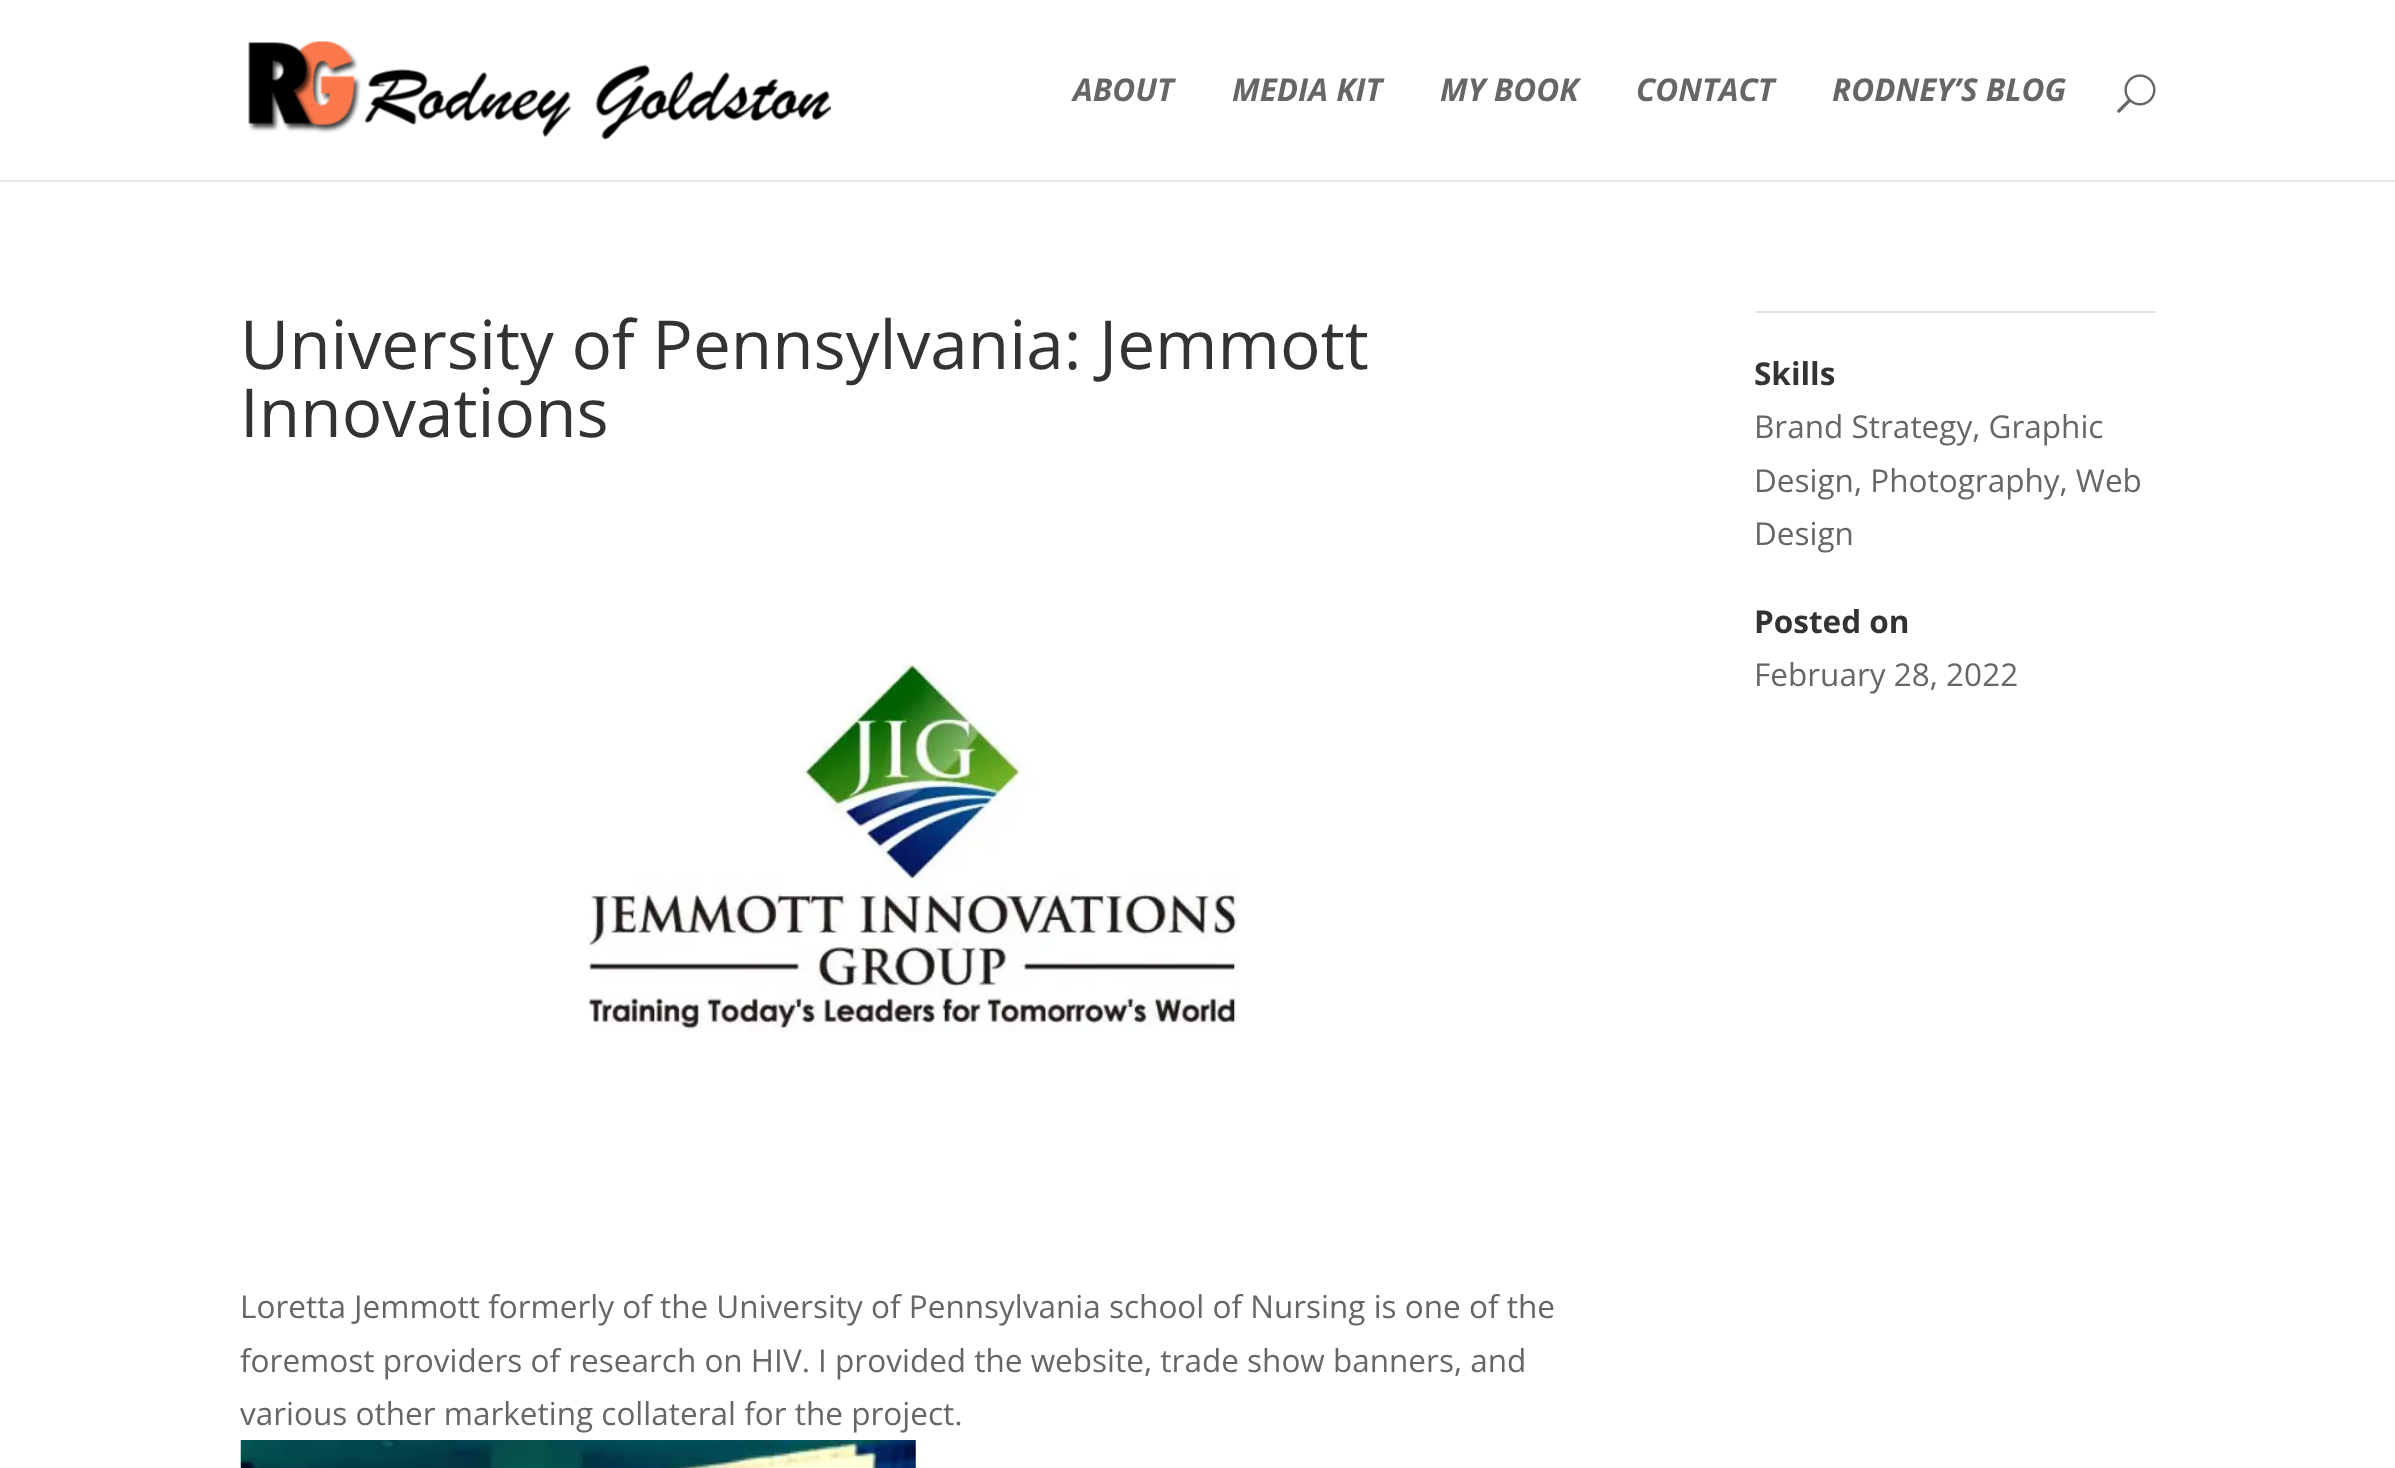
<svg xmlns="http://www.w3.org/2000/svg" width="2395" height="1468">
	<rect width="100%" height="100%" fill="#FFFFFF" />
	<rect x="0" y="180" width="2395" height="2" fill="#E6E6E6" />
	<image x="248" y="41" width="583" height="99" href="assets/img1.png" />
	<g font-family="Open Sans" font-size="31.5" font-weight="700" font-style="italic" fill="#666666">
		<text x="1073" y="101">ABOUT</text>
		<text x="1232" y="101">MEDIA KIT</text>
		<text x="1440" y="101">MY BOOK</text>
		<text x="1636" y="101">CONTACT</text>
		<text x="1832" y="101">RODNEY’S BLOG</text>
	</g>
	<image x="2117" y="74" width="39" height="39" href="assets/img2.png" />
	<g font-family="Open Sans" font-size="67.5" fill="#333333">
		<text x="240" y="369">University of Pennsylvania: Jemmott</text>
		<text x="240" y="437">Innovations</text>
	</g>
	<image x="588" y="663" width="652" height="369" href="assets/img3.png" />
	<g font-family="Open Sans" font-size="31.5" fill="#666666">
		<text x="240" y="1318">Loretta Jemmott formerly of the University of Pennsylvania school of Nursing is one of the</text>
		<text x="240" y="1372">foremost providers of research on HIV. I provided the website, trade show banners, and</text>
		<text x="240" y="1425">various other marketing collateral for the project.</text>
	</g>
	<image x="240" y="1440" width="676" height="28" href="assets/img4.png" />
	<rect x="1755" y="311" width="401" height="2" fill="#E2E2E2" />
	<text x="1754" y="385" font-family="Open Sans" font-size="31.5" font-weight="700" fill="#333333">Skills</text>
	<g font-family="Open Sans" font-size="31.5" fill="#666666">
		<text x="1754" y="438">Brand Strategy, Graphic</text>
		<text x="1754" y="492">Design, Photography, Web</text>
		<text x="1754" y="545">Design</text>
	</g>
	<text x="1754" y="633" font-family="Open Sans" font-size="31.5" font-weight="700" fill="#333333">Posted on</text>
	<text x="1754" y="686" font-family="Open Sans" font-size="31.5" fill="#666666">February 28, 2022</text>
</svg>
